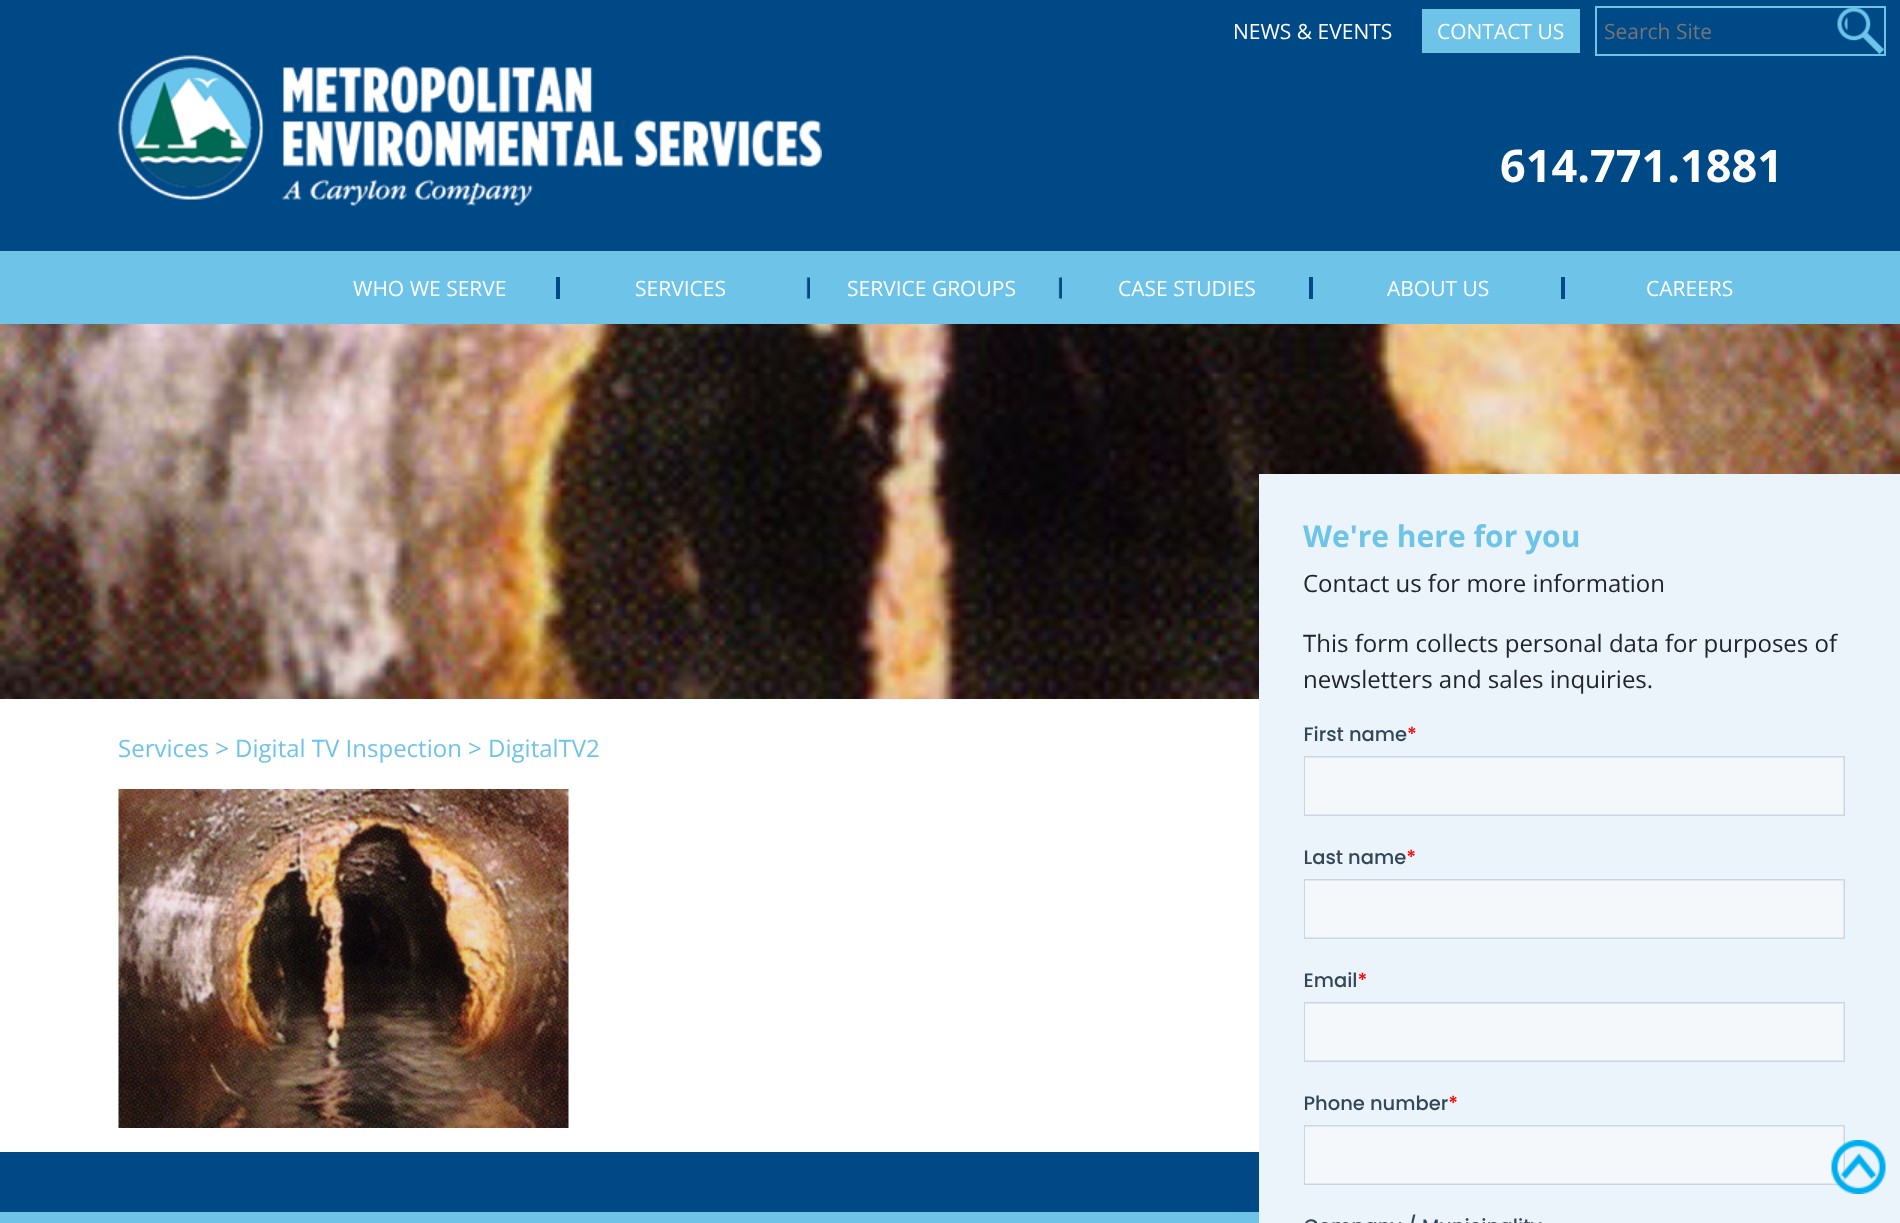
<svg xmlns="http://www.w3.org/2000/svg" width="1900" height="1223">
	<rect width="100%" height="100%" fill="#FFFFFF" />
	<rect x="0" y="0" width="1900" height="251" fill="#004987" />
	<text x="1233" y="39" font-family="Open Sans" font-size="21" fill="#FFFFFF">NEWS &amp; EVENTS</text>
	<rect x="1422" y="9" width="158" height="44" fill="#6EC4E8" />
	<text x="1437" y="39" font-family="Open Sans" font-size="21" fill="#FFFFFF">CONTACT US</text>
	<image x="1837" y="8" width="47" height="46" href="assets/img1.png" />
	<rect x="1596" y="7" width="289" height="48" fill="none" stroke="#6EC4E8" stroke-width="2" />
	<text x="1604" y="39" font-family="Open Sans" font-size="21" fill="#757575">Search Site</text>
	<image x="118" y="55" width="704" height="151" href="assets/img2.png" />
	<text x="1500" y="182" font-family="Open Sans" font-size="45" font-weight="700" fill="#FFFFFF">614.771.1881</text>
	<rect x="0" y="251" width="1900" height="73" fill="#6EC4E8" />
	<rect x="556" y="277" width="4" height="22" fill="#004987" />
	<text x="353" y="296" font-family="Open Sans" font-size="21" fill="#FFFFFF">WHO WE SERVE</text>
	<image x="806" y="277" width="4" height="22" href="assets/img3.png" />
	<text x="635" y="296" font-family="Open Sans" font-size="21" fill="#FFFFFF">SERVICES</text>
	<image x="1058" y="277" width="4" height="22" href="assets/img3.png" />
	<text x="847" y="296" font-family="Open Sans" font-size="21" fill="#FFFFFF">SERVICE GROUPS</text>
	<rect x="1309" y="277" width="4" height="22" fill="#004987" />
	<text x="1118" y="296" font-family="Open Sans" font-size="21" fill="#FFFFFF">CASE STUDIES</text>
	<rect x="1561" y="277" width="4" height="22" fill="#004987" />
	<g font-family="Open Sans" font-size="21" fill="#FFFFFF">
		<text x="1387" y="296">ABOUT US</text>
		<text x="1646" y="296">CAREERS</text>
	</g>
	<image x="0" y="324" width="1900" height="375" href="assets/img4.png" />
	<rect x="1259" y="474" width="641" height="749" fill="#EBF4FB" />
	<text x="1303" y="547" font-family="Open Sans" font-size="30" font-weight="700" fill="#6EC4E8">We're here for you</text>
	<g font-family="Open Sans" font-size="24" fill="#212529">
		<text x="1303" y="592">Contact us for more information</text>
		<text x="1303" y="652">This form collects personal data for purposes of</text>
		<text x="1303" y="688">newsletters and sales inquiries.</text>
	</g>
	<image x="1304" y="726" width="541" height="497" href="assets/img5.png" />
	<text x="118" y="757" font-family="Open Sans" font-size="24" fill="#6EC4E8">Services &gt; Digital TV Inspection &gt; DigitalTV2</text>
	<image x="118" y="789" width="451" height="339" href="assets/img6.png" />
	<rect x="0" y="1152" width="1259" height="60" fill="#004987" />
	<rect x="0" y="1212" width="1259" height="11" fill="#6EC4E8" />
	<image x="1831" y="1140" width="55" height="54" href="assets/img7.png" />
</svg>
